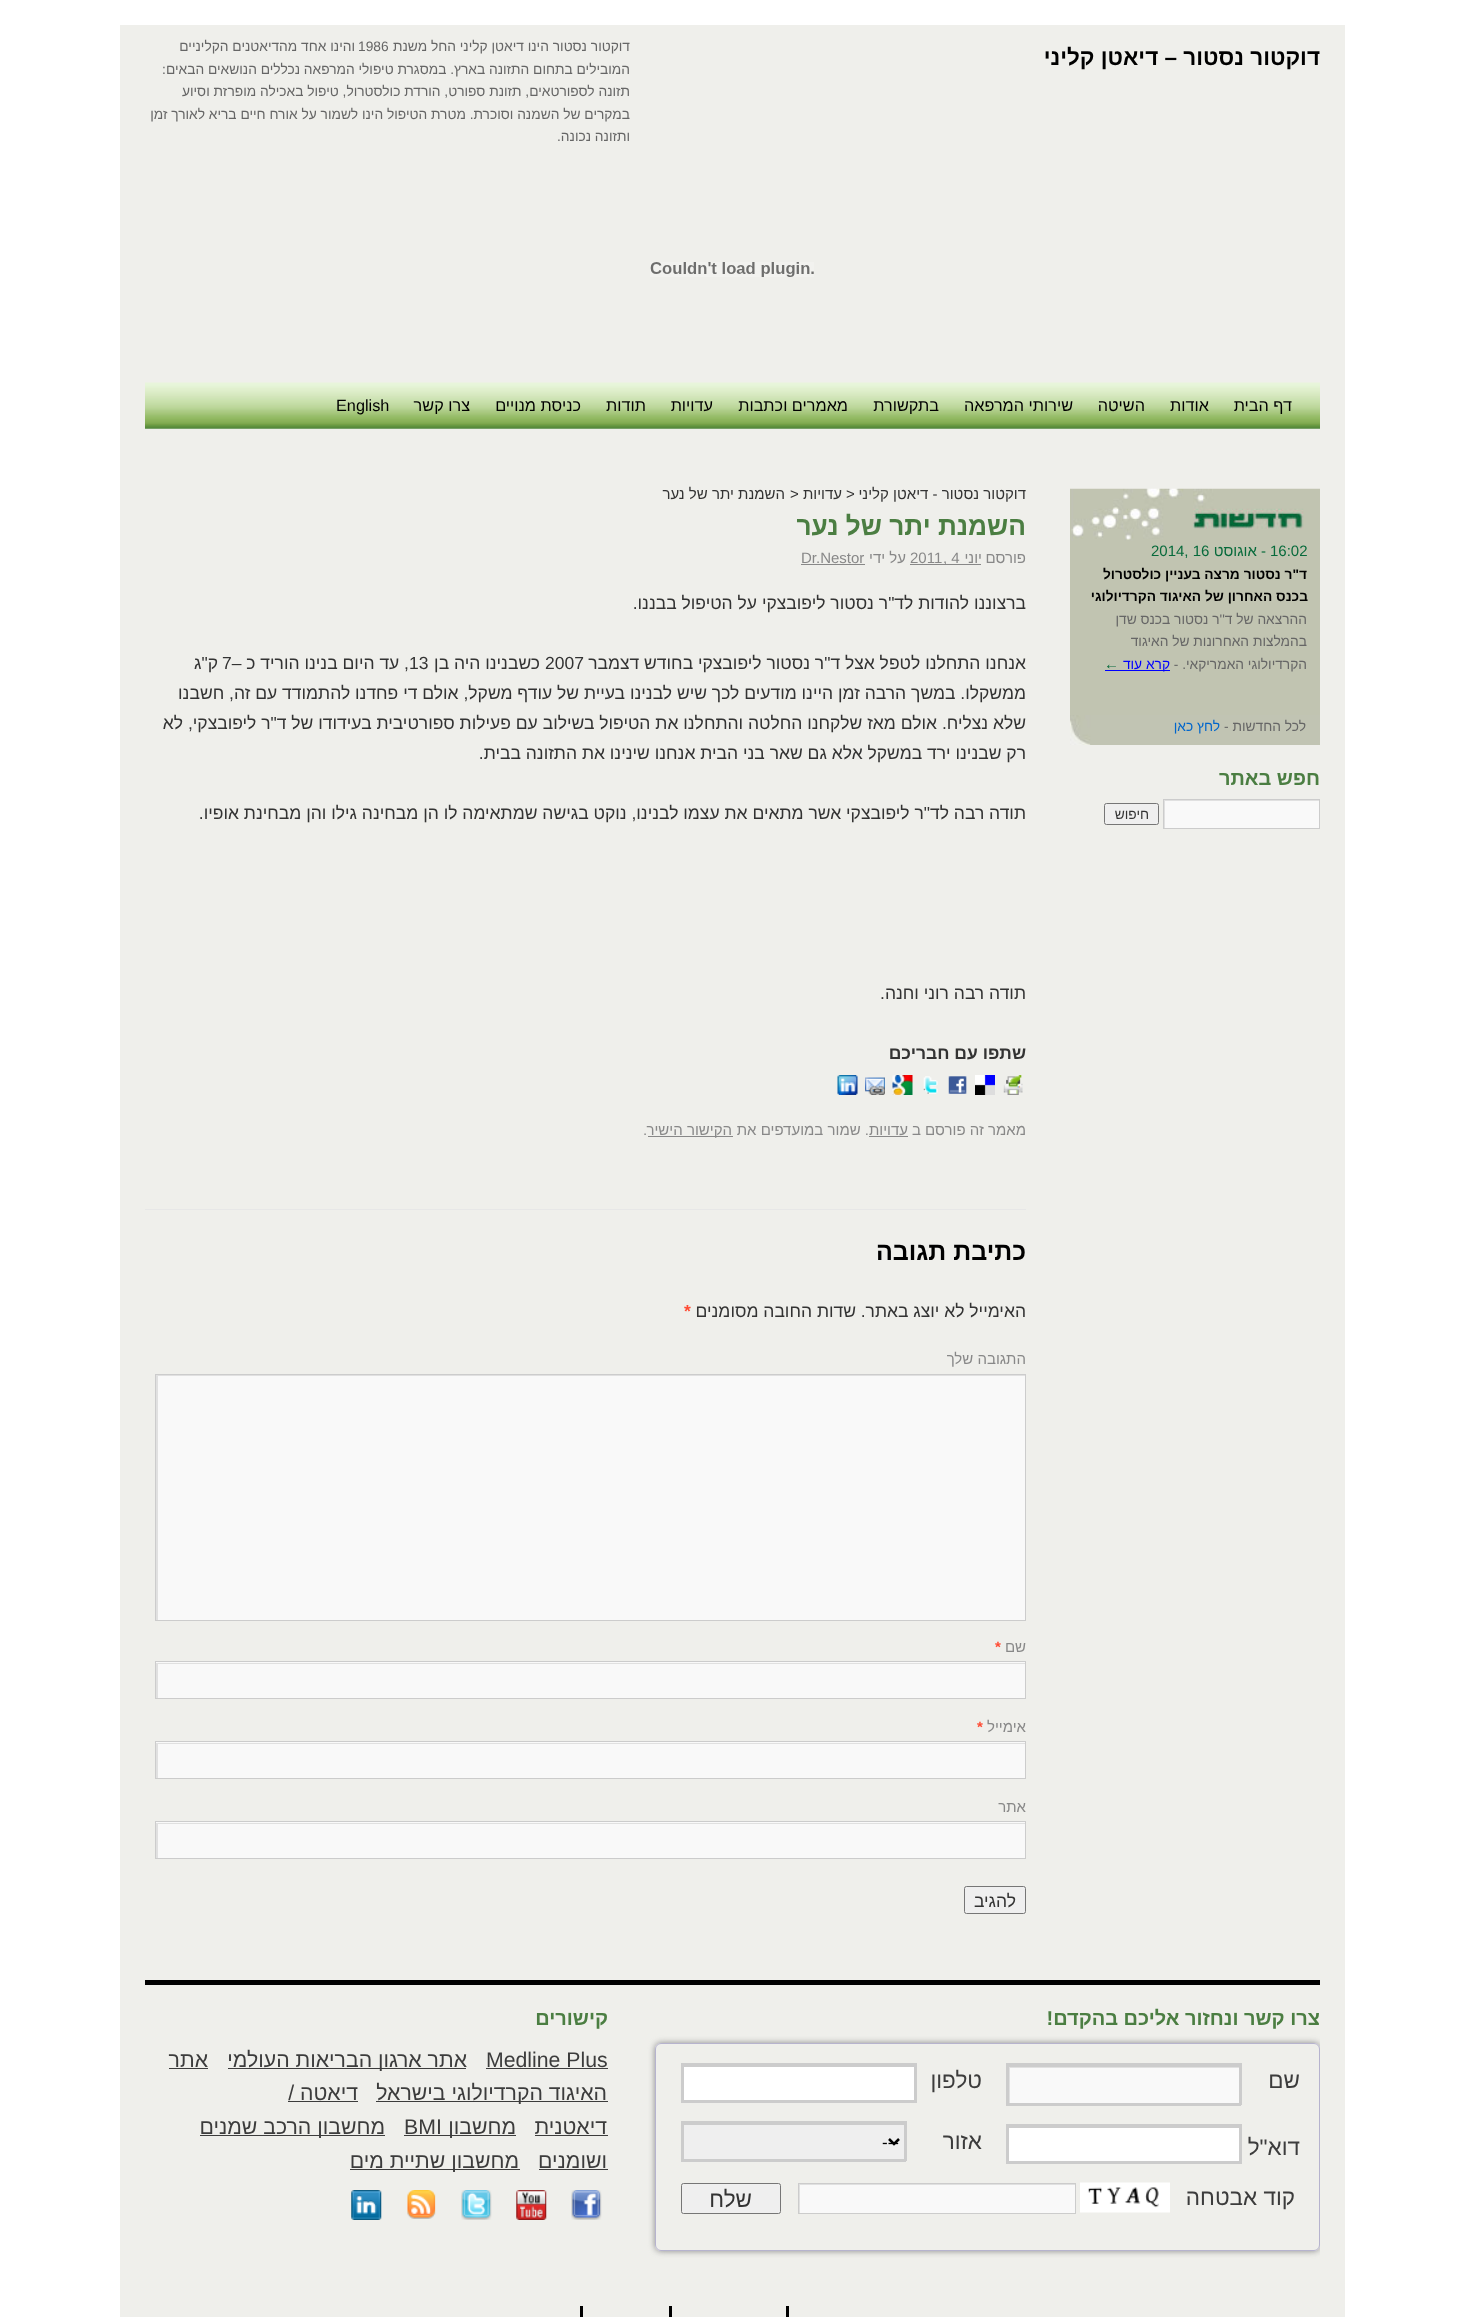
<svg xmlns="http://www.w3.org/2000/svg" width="1464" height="2317">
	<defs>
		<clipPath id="clip1"><rect x="156" y="1375" width="869" height="245" /></clipPath>
		<clipPath id="clip2"><rect x="156" y="1663" width="869" height="35" /></clipPath>
		<clipPath id="clip3"><rect x="156" y="1743" width="869" height="35" /></clipPath>
		<clipPath id="clip4"><rect x="156" y="1823" width="869" height="35" /></clipPath>
		<clipPath id="clip5"><rect x="1164" y="800" width="155" height="28" /></clipPath>
		<clipPath id="clip6"><rect x="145" y="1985" width="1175" height="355" /></clipPath>
		<clipPath id="clip7"><path d="M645 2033H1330V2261H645ZM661 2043H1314C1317.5 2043 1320 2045.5 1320 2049V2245C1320 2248.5 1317.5 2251 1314 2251H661C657.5 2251 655 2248.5 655 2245V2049C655 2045.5 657.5 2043 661 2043Z" clip-rule="evenodd" /></clipPath>
		<clipPath id="clip8"><rect x="1009" y="2066" width="230" height="37" /></clipPath>
		<clipPath id="clip9"><rect x="799" y="2184" width="276" height="29" /></clipPath>
	</defs>
	<rect width="100%" height="100%" fill="#FFFFFF" />
	<rect x="120" y="25" width="1225" height="2292" fill="#EFEFEB" />
	<text x="1320" y="65" font-family="Liberation Sans" font-size="22.5" font-weight="700" direction="rtl" fill="#000000">דוקטור נסטור – דיאטן קליני</text>
	<text x="630" y="51" font-family="Liberation Sans" font-size="13.75" direction="rtl" fill="#666666">דוקטור נסטור הינו דיאטן קליני החל משנת</text>
	<text x="358" y="51" font-family="Liberation Sans" font-size="13.75" fill="#666666">1986</text>
	<g font-family="Liberation Sans" font-size="13.75" direction="rtl" fill="#666666">
		<text x="355" y="51">והינו אחד מהדיאטנים הקליניים</text>
		<text x="630" y="74">המובילים בתחום התזונה בארץ. במסגרת טיפולי המרפאה נכללים הנושאים הבאים:</text>
		<text x="630" y="96">תזונה לספורטאים, תזונת ספורט, הורדת כולסטרול, טיפול באכילה מופרזת וסיוע</text>
		<text x="630" y="119">במקרים של השמנה וסוכרת. מטרת הטיפול הינו לשמור על אורח חיים בריא לאורך זמן</text>
		<text x="630" y="141">ותזונה נכונה.</text>
	</g>
	<image x="650" y="262" width="164" height="15" href="assets/img1.png" />
	<image x="145" y="382" width="1175" height="47" href="assets/img2.png" />
	<g font-family="Liberation Sans" font-size="16.25" direction="rtl" fill="#000000">
		<text x="1292" y="411">דף הבית</text>
		<text x="1209" y="411">אודות</text>
		<text x="1145" y="411">השיטה</text>
		<text x="1073" y="411">שירותי המרפאה</text>
		<text x="939" y="411">בתקשורת</text>
		<text x="848" y="411">מאמרים וכתבות</text>
		<text x="713" y="411">עדויות</text>
		<text x="646" y="411">תודות</text>
		<text x="581" y="411">כניסת מנויים</text>
		<text x="470" y="411">צרו קשר</text>
	</g>
	<text x="336" y="411" font-family="Liberation Sans" font-size="16.25" fill="#000000">English</text>
	<rect x="1070" y="541" width="250" height="174" fill="#C1C4B1" />
	<image x="1070" y="488" width="250" height="53" href="assets/img3.png" />
	<rect x="1126" y="540" width="4" height="1" fill="#C1C4B1" />
	<text x="1270" y="556" font-family="Liberation Sans" font-size="15" fill="#076A3B">16:02</text>
	<text x="1266" y="556" font-family="Liberation Sans" font-size="15" direction="rtl" fill="#076A3B">- אוגוסט</text>
	<text x="1151" y="556" font-family="Liberation Sans" font-size="15" fill="#076A3B">2014, 16</text>
	<g font-family="Liberation Sans" font-size="13.75" font-weight="700" direction="rtl" fill="#000000">
		<text x="1307" y="579">ד"ר נסטור מרצה בעניין כולסטרול</text>
		<text x="1308" y="601">בכנס האחרון של האיגוד הקרדיולוגי</text>
	</g>
	<g font-family="Liberation Sans" font-size="13.75" direction="rtl" fill="#666666">
		<text x="1307" y="624">ההרצאה של ד''ר נסטור בכנס שדן</text>
		<text x="1307" y="646">בהמלצות האחרונות של האיגוד</text>
		<text x="1307" y="669">הקרדיולוגי האמריקאי. -</text>
	</g>
	<rect x="1105" y="670" width="65" height="1" fill="#0000FF" />
	<text x="1170" y="669" font-family="Liberation Sans" font-size="13.75" direction="rtl" fill="#0000FF">קרא עוד</text>
	<text x="1104" y="669" font-family="Liberation Sans" font-size="15" fill="#076A3B">←</text>
	<image x="1070" y="715" width="250" height="30" href="assets/img4.png" />
	<text x="1306" y="731" font-family="Liberation Sans" font-size="13.75" direction="rtl" fill="#666666">לכל החדשות -</text>
	<text x="1220" y="731" font-family="Liberation Sans" font-size="13.75" direction="rtl" fill="#0066CC">לחץ כאן</text>
	<text x="1026" y="499" font-family="Liberation Sans" font-size="15" direction="rtl" fill="#333333">דוקטור נסטור - דיאטן קליני</text>
	<text x="846" y="499" font-family="Liberation Sans" font-size="15" fill="#333333">&gt;</text>
	<text x="842" y="499" font-family="Liberation Sans" font-size="15" direction="rtl" fill="#333333">עדויות</text>
	<text x="790" y="499" font-family="Liberation Sans" font-size="15" fill="#333333">&gt;</text>
	<text x="785" y="499" font-family="Liberation Sans" font-size="15" direction="rtl" fill="#333333">השמנת יתר של נער</text>
	<text x="1026" y="535" font-family="Liberation Sans" font-size="26.25" font-weight="700" direction="rtl" fill="#4B7E42">השמנת יתר של נער</text>
	<g font-family="Liberation Sans" font-size="15" direction="rtl" fill="#888888">
		<text x="1026" y="563">פורסם</text>
		<text x="982" y="563">יוני</text>
	</g>
	<rect x="910" y="564" width="71" height="1" fill="#888888" />
	<g font-family="Liberation Sans" font-size="15" fill="#888888">
		<text x="943" y="563">, 4</text>
		<text x="910" y="563">2011</text>
	</g>
	<text x="906" y="563" font-family="Liberation Sans" font-size="15" direction="rtl" fill="#888888">על ידי</text>
	<text x="801" y="563" font-family="Liberation Sans" font-size="15" fill="#888888">Dr.Nestor</text>
	<rect x="801" y="564" width="64" height="1" fill="#888888" />
	<g font-family="Liberation Sans" font-size="17.5" direction="rtl" fill="#333333">
		<text x="1026" y="609">ברצוננו להודות לד"ר נסטור ליפובצקי על הטיפול בבננו.</text>
		<text x="1026" y="669">אנחנו התחלנו לטפל אצל ד"ר נסטור ליפובצקי בחודש דצמבר</text>
	</g>
	<text x="545" y="669" font-family="Liberation Sans" font-size="17.5" fill="#333333">2007</text>
	<text x="540" y="669" font-family="Liberation Sans" font-size="17.5" direction="rtl" fill="#333333">כשבנינו היה בן</text>
	<text x="409" y="669" font-family="Liberation Sans" font-size="17.5" fill="#333333">13</text>
	<text x="409" y="669" font-family="Liberation Sans" font-size="17.5" direction="rtl" fill="#333333">, עד היום בנינו הוריד כ –</text>
	<text x="222" y="669" font-family="Liberation Sans" font-size="17.5" fill="#333333">7</text>
	<g font-family="Liberation Sans" font-size="17.5" direction="rtl" fill="#333333">
		<text x="218" y="669">ק"ג</text>
		<text x="1026" y="699">ממשקלו. במשך הרבה זמן היינו מודעים לכך שיש לבנינו בעיית של עודף משקל, אולם די פחדנו להתמודד עם זה, חשבנו</text>
		<text x="1026" y="729">שלא נצליח. אולם מאז שלקחנו החלטה והתחלנו את הטיפול בשילוב עם פעילות ספורטיבית בעידודו של ד"ר ליפובצקי, לא</text>
		<text x="1026" y="759">רק שבנינו ירד במשקל אלא גם שאר בני הבית אנחנו שינינו את התזונה בבית.</text>
		<text x="1026" y="819">תודה רבה לד"ר ליפובצקי אשר מתאים את עצמו לבנינו, נוקט בגישה שמתאימה לו הן מבחינה גילו והן מבחינת אופיו.</text>
		<text x="1026" y="999">תודה רבה רוני וחנה.</text>
	</g>
	<text x="1026" y="1059" font-family="Liberation Sans" font-size="17.5" font-weight="700" direction="rtl" fill="#333333">שתפו עם חבריכם</text>
	<image x="1003" y="1075" width="20" height="20" href="assets/img5.png" />
	<image x="975" y="1075" width="20" height="20" href="assets/img6.png" />
	<image x="948" y="1076" width="19" height="18" href="assets/img7.png" />
	<image x="923" y="1076" width="15" height="18" href="assets/img8.png" />
	<image x="892" y="1075" width="21" height="20" href="assets/img9.png" />
	<image x="865" y="1077" width="20" height="18" href="assets/img10.png" />
	<image x="837" y="1075" width="21" height="20" href="assets/img11.png" />
	<g font-family="Liberation Sans" font-size="15" direction="rtl" fill="#888888">
		<text x="1026" y="1135">מאמר זה פורסם ב</text>
		<text x="908" y="1135">עדויות</text>
	</g>
	<rect x="869" y="1136" width="39" height="1" fill="#888888" />
	<text x="869" y="1135" font-family="Liberation Sans" font-size="15" direction="rtl" fill="#888888">. שמור במועדפים את</text>
	<rect x="648" y="1136" width="85" height="1" fill="#888888" />
	<text x="732" y="1135" font-family="Liberation Sans" font-size="15" direction="rtl" fill="#888888">הקישור הישיר</text>
	<text x="643" y="1135" font-family="Liberation Sans" font-size="15" fill="#888888">.</text>
	<rect x="145" y="1209" width="881" height="1" fill="#E7E7E7" />
	<text x="1026" y="1260" font-family="Liberation Sans" font-size="25" font-weight="700" direction="rtl" fill="#000000">כתיבת תגובה</text>
	<g font-family="Liberation Sans" font-size="17.5" direction="rtl" fill="#333333">
		<text x="1026" y="1317">האימייל לא יוצג באתר.</text>
		<text x="856" y="1317">שדות החובה מסומנים</text>
	</g>
	<text x="684" y="1317" font-family="Liberation Sans" font-size="17.5" font-weight="700" fill="#FF4B33">*</text>
	<text x="1026" y="1364" font-family="Liberation Sans" font-size="15" direction="rtl" fill="#888888">התגובה שלך</text>
	<rect x="158" y="1376" width="867" height="244" fill="#F9F9F9" />
	<g clip-path="url(#clip1)">
		<path d="M32 1251H1149V1744H32ZM158 1376H1026V1621H158Z" fill="#E0E0E0" fill-rule="evenodd" />
	</g>
	<rect x="155.5" y="1374.5" width="870" height="246" fill="none" stroke="#CCCCCC" />
	<text x="1026" y="1652" font-family="Liberation Sans" font-size="15" direction="rtl" fill="#888888">שם</text>
	<text x="995" y="1652" font-family="Liberation Sans" font-size="15" font-weight="700" fill="#FF4B33">*</text>
	<rect x="156" y="1662" width="869" height="36" fill="#F9F9F9" />
	<g clip-path="url(#clip2)">
		<path d="M32 1539H1149V1821H32ZM158 1664H1026V1699H158Z" fill="#E0E0E0" fill-rule="evenodd" />
	</g>
	<rect x="155.5" y="1661.5" width="870" height="37" fill="none" stroke="#CCCCCC" />
	<text x="1026" y="1732" font-family="Liberation Sans" font-size="15" direction="rtl" fill="#888888">אימייל</text>
	<text x="977" y="1732" font-family="Liberation Sans" font-size="15" font-weight="700" fill="#FF4B33">*</text>
	<rect x="156" y="1742" width="869" height="36" fill="#F9F9F9" />
	<g clip-path="url(#clip3)">
		<path d="M32 1619H1149V1901H32ZM158 1744H1026V1779H158Z" fill="#E0E0E0" fill-rule="evenodd" />
	</g>
	<rect x="155.5" y="1741.5" width="870" height="37" fill="none" stroke="#CCCCCC" />
	<text x="1026" y="1812" font-family="Liberation Sans" font-size="15" direction="rtl" fill="#888888">אתר</text>
	<rect x="156" y="1822" width="869" height="36" fill="#F9F9F9" />
	<g clip-path="url(#clip4)">
		<path d="M32 1699H1149V1981H32ZM158 1824H1026V1859H158Z" fill="#E0E0E0" fill-rule="evenodd" />
	</g>
	<rect x="155.5" y="1821.5" width="870" height="37" fill="none" stroke="#CCCCCC" />
	<rect x="964.5" y="1886.5" width="61" height="27" rx="2" fill="#EFEFEF" stroke="#767676" />
	<text x="1016" y="1907" font-family="Liberation Sans" font-size="17.5" direction="rtl" fill="#333333">להגיב</text>
	<text x="1320" y="785" font-family="Liberation Sans" font-size="20" font-weight="700" direction="rtl" fill="#4B7E42">חפש באתר</text>
	<rect x="1165" y="801" width="154" height="27" fill="#F9F9F9" />
	<g clip-path="url(#clip5)">
		<path d="M1040 676H1442V951H1040ZM1165 801H1320V829H1165Z" fill="#E0E0E0" fill-rule="evenodd" />
	</g>
	<rect x="1163.5" y="799.5" width="156" height="29" fill="none" stroke="#CCCCCC" />
	<rect x="1104.5" y="803.5" width="54" height="21" rx="2" fill="#EFEFEF" stroke="#767676" />
	<text x="1149" y="819" font-family="Liberation Sans" font-size="13.75" direction="rtl" fill="#333333">חיפוש</text>
	<rect x="145" y="1980" width="1175" height="5" fill="#000000" />
	<text x="1320" y="2025" font-family="Liberation Sans" font-size="20" font-weight="700" direction="rtl" fill="#4B7E42">צרו קשר ונחזור אליכם בהקדם!</text>
	<g clip-path="url(#clip6)">
		<g clip-path="url(#clip7)">
			<rect x="655" y="2043" width="665" height="208" rx="6" fill="#888888" filter="blur(3px)" />
		</g>
	</g>
	<rect x="655.5" y="2043.5" width="664" height="207" rx="5.5" fill="none" stroke="#B6B3CE" />
	<text x="1300" y="2088" font-family="Liberation Sans" font-size="22.5" direction="rtl" fill="#3C3C3C">שם</text>
	<rect x="1010" y="2068" width="229" height="35" fill="#F9F9F9" />
	<g clip-path="url(#clip8)">
		<path d="M885 1942H1362V2226H885ZM1010 2068H1240V2104H1010Z" fill="#E0E0E0" fill-rule="evenodd" />
	</g>
	<rect x="1006" y="2063" width="235" height="4" fill="#CCCCCC" />
	<rect x="1239" y="2063" width="3" height="42" fill="#CCCCCC" />
	<rect x="1006" y="2103" width="235" height="3" fill="#CCCCCC" />
	<rect x="1006" y="2063" width="3" height="42" fill="#CCCCCC" />
	<text x="1300" y="2155" font-family="Liberation Sans" font-size="22.5" direction="rtl" fill="#3C3C3C">דוא"ל</text>
	<rect x="1009" y="2128" width="230" height="33" fill="#FFFFFF" />
	<rect x="1006" y="2124" width="235" height="4" fill="#CCCCCC" />
	<rect x="1239" y="2124" width="3" height="40" fill="#CCCCCC" />
	<rect x="1006" y="2161" width="235" height="3" fill="#CCCCCC" />
	<rect x="1006" y="2124" width="3" height="40" fill="#CCCCCC" />
	<text x="982" y="2088" font-family="Liberation Sans" font-size="22.5" direction="rtl" fill="#3C3C3C">טלפון</text>
	<rect x="684" y="2067" width="230" height="33" fill="#FFFFFF" />
	<rect x="681" y="2063" width="235" height="4" fill="#CCCCCC" />
	<rect x="914" y="2063" width="3" height="40" fill="#CCCCCC" />
	<rect x="681" y="2100" width="235" height="3" fill="#CCCCCC" />
	<rect x="681" y="2063" width="3" height="40" fill="#CCCCCC" />
	<text x="982" y="2149" font-family="Liberation Sans" font-size="22.5" direction="rtl" fill="#3C3C3C">אזור</text>
	<rect x="684" y="2125" width="220" height="34" fill="#EFEFEF" />
	<rect x="681" y="2121" width="225" height="4" fill="#CCCCCC" />
	<rect x="904" y="2121" width="3" height="40" fill="#CCCCCC" />
	<rect x="681" y="2159" width="225" height="3" fill="#CCCCCC" />
	<rect x="681" y="2121" width="3" height="40" fill="#CCCCCC" />
	<path d="M889 2139L894 2144L899 2139" fill="none" stroke="#000000" stroke-width="2.5" />
	<text x="882" y="2148" font-family="Liberation Sans" font-size="17" fill="#000000">---</text>
	<text x="1295" y="2205" font-family="Liberation Sans" font-size="22.5" direction="rtl" fill="#3C3C3C">קוד אבטחה</text>
	<image x="1080" y="2182" width="90" height="31" href="assets/img12.png" />
	<rect x="800" y="2185" width="275" height="28" fill="#F9F9F9" />
	<g clip-path="url(#clip9)">
		<path d="M675 2060H1199V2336H675ZM800 2185H1076V2214H800Z" fill="#E0E0E0" fill-rule="evenodd" />
	</g>
	<rect x="798.5" y="2183.5" width="277" height="30" fill="none" stroke="#CCCCCC" />
	<rect x="681.5" y="2183.5" width="99" height="30" rx="2" fill="#EFEFEF" stroke="#767676" />
	<text x="752" y="2207" font-family="Liberation Sans" font-size="22.5" direction="rtl" fill="#333333">שלח</text>
	<text x="608" y="2025" font-family="Liberation Sans" font-size="20" font-weight="700" direction="rtl" fill="#4B7E42">קישורים</text>
	<text x="486" y="2067" font-family="Liberation Sans" font-size="21.25" fill="#3C3C3C">Medline Plus</text>
	<rect x="486" y="2068" width="122" height="1" fill="#3C3C3C" />
	<rect x="228" y="2068" width="238" height="1" fill="#3C3C3C" />
	<g font-family="Liberation Sans" font-size="21.25" direction="rtl" fill="#3C3C3C">
		<text x="467" y="2067">אתר ארגון הבריאות העולמי</text>
		<text x="208" y="2067">אתר</text>
	</g>
	<rect x="169" y="2068" width="39" height="1" fill="#3C3C3C" />
	<rect x="376" y="2101" width="232" height="1" fill="#3C3C3C" />
	<g font-family="Liberation Sans" font-size="21.25" direction="rtl" fill="#3C3C3C">
		<text x="607" y="2100">האיגוד הקרדיולוגי בישראל</text>
		<text x="358" y="2100">דיאטה /</text>
	</g>
	<rect x="288" y="2101" width="70" height="1" fill="#3C3C3C" />
	<text x="607" y="2134" font-family="Liberation Sans" font-size="21.25" direction="rtl" fill="#3C3C3C">דיאטנית</text>
	<rect x="535" y="2135" width="73" height="1" fill="#3C3C3C" />
	<rect x="404" y="2135" width="112" height="1" fill="#3C3C3C" />
	<text x="516" y="2134" font-family="Liberation Sans" font-size="21.25" direction="rtl" fill="#3C3C3C">מחשבון</text>
	<text x="404" y="2134" font-family="Liberation Sans" font-size="21.25" fill="#3C3C3C">BMI</text>
	<rect x="200" y="2135" width="185" height="1" fill="#3C3C3C" />
	<g font-family="Liberation Sans" font-size="21.25" direction="rtl" fill="#3C3C3C">
		<text x="385" y="2134">מחשבון הרכב שמנים</text>
		<text x="607" y="2168">ושומנים</text>
	</g>
	<rect x="539" y="2169" width="69" height="1" fill="#3C3C3C" />
	<rect x="350" y="2169" width="170" height="1" fill="#3C3C3C" />
	<text x="519" y="2168" font-family="Liberation Sans" font-size="21.25" direction="rtl" fill="#3C3C3C">מחשבון שתיית מים</text>
	<image x="571" y="2190" width="31" height="30" href="assets/img13.png" />
	<image x="516" y="2190" width="31" height="30" href="assets/img14.png" />
	<image x="461" y="2190" width="31" height="30" href="assets/img15.png" />
	<image x="407" y="2190" width="29" height="29" href="assets/img16.png" />
	<image x="351" y="2190" width="31" height="30" href="assets/img17.png" />
	<rect x="786" y="2306" width="3" height="11" fill="#000000" />
	<rect x="669" y="2306" width="3" height="11" fill="#000000" />
	<rect x="580" y="2306" width="3" height="11" fill="#000000" />
</svg>
